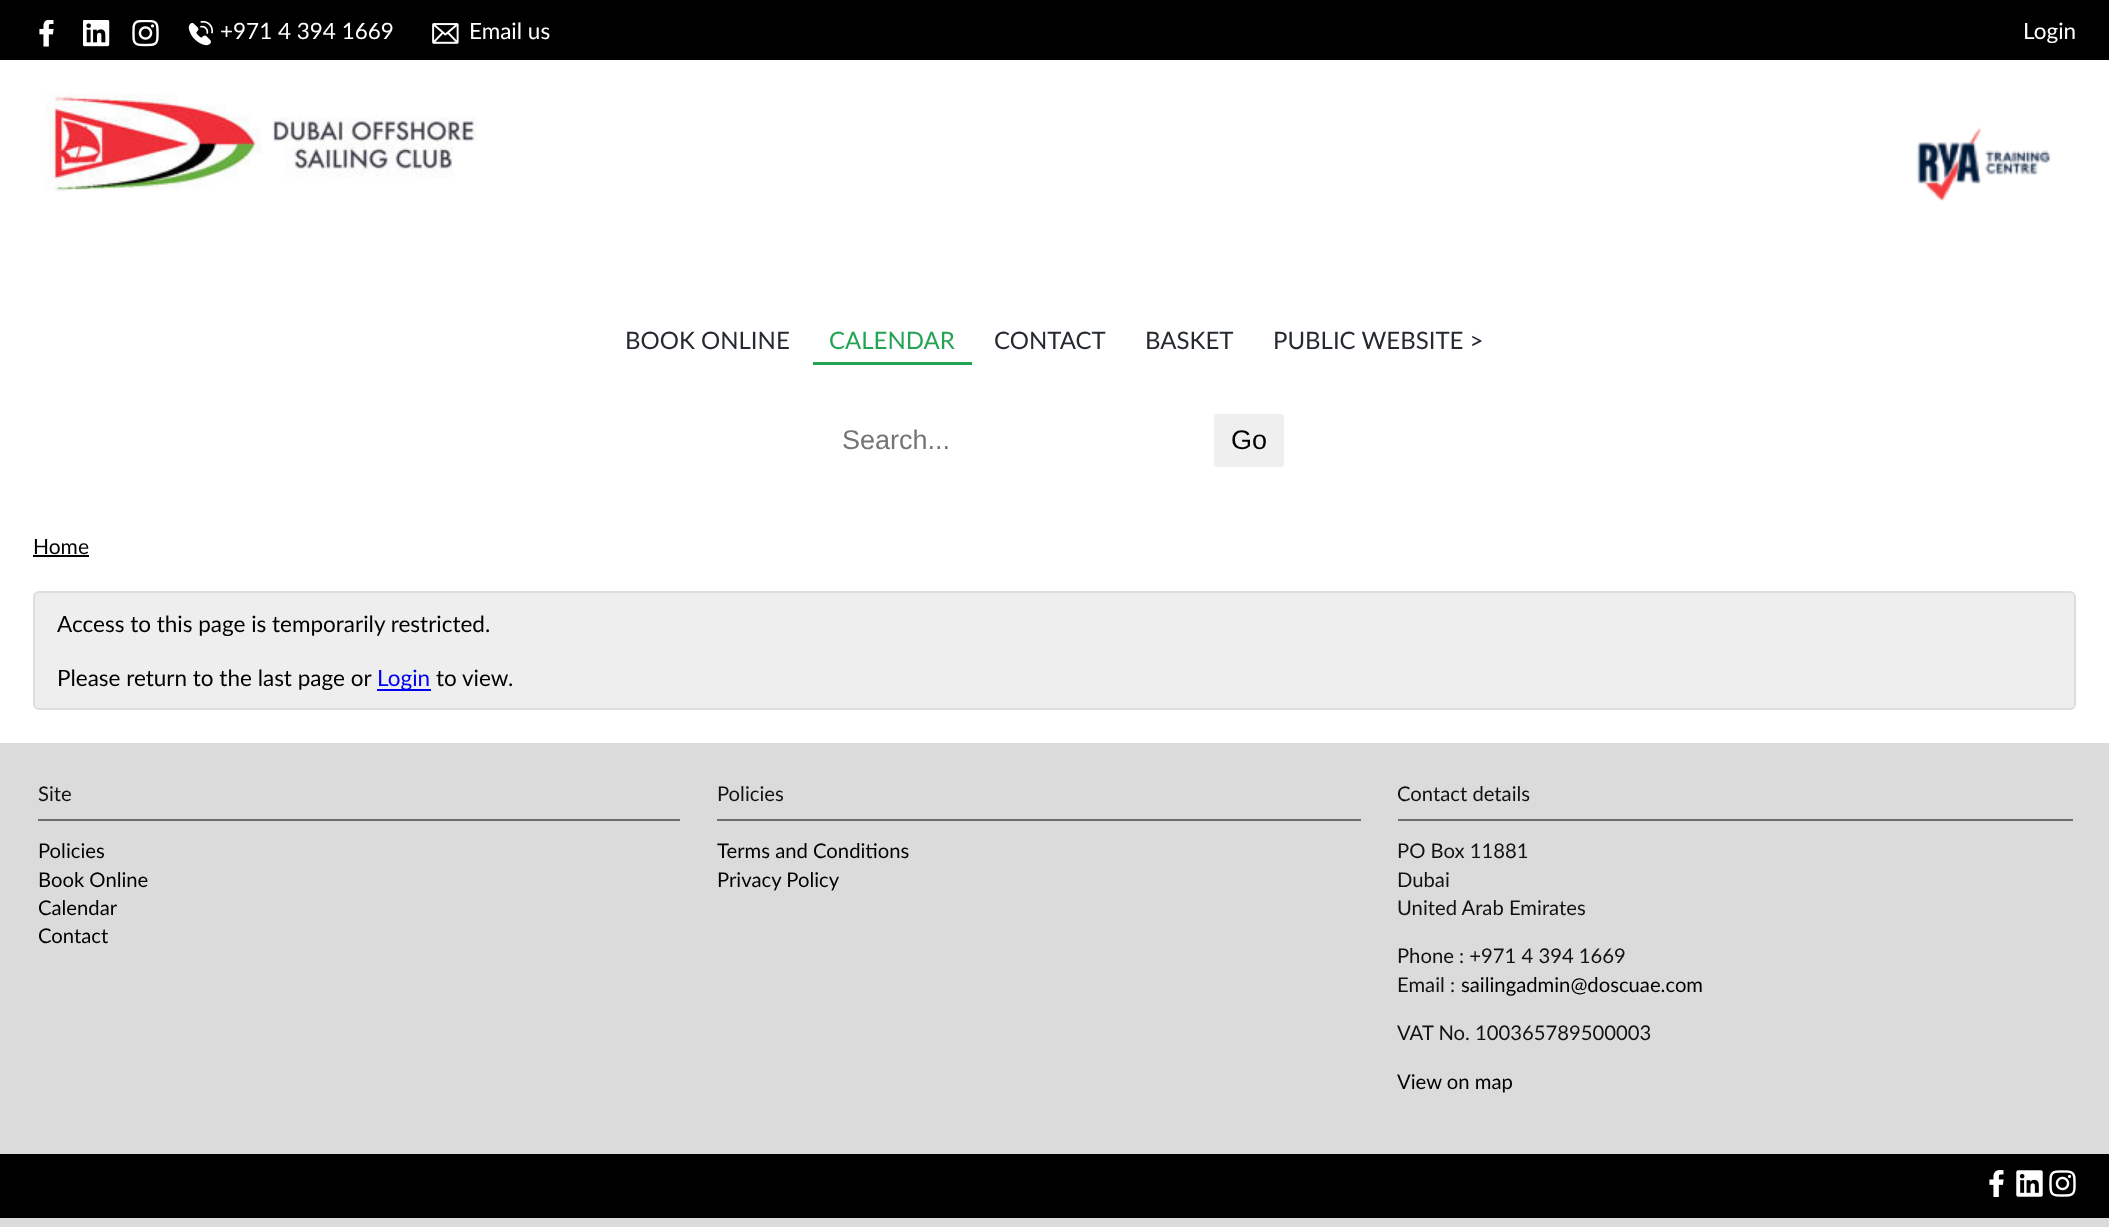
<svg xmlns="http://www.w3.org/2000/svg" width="2109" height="1227">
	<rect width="100%" height="100%" fill="#FFFFFF" />
	<rect x="0" y="0" width="2109" height="60" fill="#000000" />
	<image x="39" y="20" width="15" height="27" href="assets/img1.png" />
	<image x="83" y="20" width="27" height="27" href="assets/img2.png" />
	<image x="132" y="20" width="27" height="27" href="assets/img3.png" />
	<image x="188" y="20" width="25" height="26" href="assets/img4.png" />
	<text x="220" y="39" font-family="Lato" font-size="22.5" fill="#FFFFFF">+971 4 394 1669</text>
	<image x="432" y="23" width="27" height="21" href="assets/img5.png" />
	<g font-family="Lato" font-size="22.5" fill="#FFFFFF">
		<text x="469" y="39">Email us</text>
		<text x="2023" y="39">Login</text>
	</g>
	<image x="45" y="93" width="432" height="99" href="assets/img6.png" />
	<image x="1917" y="127" width="134" height="74" href="assets/img7.png" />
	<text x="625" y="349" font-family="Lato" font-size="24" fill="#252930">BOOK ONLINE</text>
	<rect x="813" y="362" width="159" height="3" fill="#23A455" />
	<text x="829" y="349" font-family="Lato" font-size="24" fill="#23A455">CALENDAR</text>
	<g font-family="Lato" font-size="24" fill="#252930">
		<text x="994" y="349">CONTACT</text>
		<text x="1145" y="349">BASKET</text>
		<text x="1273" y="349">PUBLIC WEBSITE &gt;</text>
	</g>
	<text x="842" y="449" font-family="Liberation Sans" font-size="27" fill="#757575">Search...</text>
	<rect x="1214" y="414" width="70" height="53" rx="3" fill="#EFEFEF" />
	<text x="1231" y="449" font-family="Liberation Sans" font-size="27" fill="#000000">Go</text>
	<text x="33" y="554" font-family="Lato" font-size="21" fill="#000000">Home</text>
	<rect x="33" y="555" width="56" height="2" fill="#000000" />
	<rect x="34" y="592" width="2041" height="117" rx="5" fill="#EEEEEE" stroke="#DDDDDD" stroke-width="2" />
	<g font-family="Lato" font-size="22.5" fill="#000000">
		<text x="57" y="632">Access to this page is temporarily restricted.</text>
		<text x="57" y="686">Please return to the last page or</text>
	</g>
	<rect x="377" y="689" width="54" height="2" fill="#0000EE" />
	<text x="377" y="686" font-family="Lato" font-size="22.5" fill="#0000EE">Login</text>
	<text x="436" y="686" font-family="Lato" font-size="22.5" fill="#000000">to view.</text>
	<rect x="0" y="743" width="2109" height="411" fill="#DBDBDB" />
	<rect x="38" y="819" width="642" height="2" fill="#6E6E6E" />
	<text x="38" y="801" font-family="Lato" font-size="20.25" fill="#121212">Site</text>
	<g font-family="Lato" font-size="20.25" fill="#000000">
		<text x="38" y="858">Policies</text>
		<text x="38" y="887">Book Online</text>
		<text x="38" y="915">Calendar</text>
		<text x="38" y="943">Contact</text>
	</g>
	<rect x="717" y="819" width="644" height="2" fill="#6E6E6E" />
	<text x="717" y="801" font-family="Lato" font-size="20.25" fill="#121212">Policies</text>
	<g font-family="Lato" font-size="20.25" fill="#000000">
		<text x="717" y="858">Terms and Conditions</text>
		<text x="717" y="887">Privacy Policy</text>
	</g>
	<rect x="1398" y="819" width="675" height="2" fill="#6E6E6E" />
	<g font-family="Lato" font-size="20.25" fill="#121212">
		<text x="1397" y="801">Contact details</text>
		<text x="1397" y="858">PO Box 11881</text>
		<text x="1397" y="887">Dubai</text>
		<text x="1397" y="915">United Arab Emirates</text>
		<text x="1397" y="963">Phone : +971 4 394 1669</text>
		<text x="1397" y="992">Email :</text>
	</g>
	<text x="1461" y="992" font-family="Lato" font-size="20.25" fill="#000000">sailingadmin@doscuae.com</text>
	<text x="1397" y="1040" font-family="Lato" font-size="20.25" fill="#121212">VAT No. 100365789500003</text>
	<text x="1397" y="1089" font-family="Lato" font-size="20.25" fill="#000000">View on map</text>
	<rect x="0" y="1154" width="2109" height="64" fill="#000000" />
	<image x="1989" y="1170" width="15" height="27" href="assets/img8.png" />
	<image x="2016" y="1170" width="27" height="27" href="assets/img9.png" />
	<image x="2049" y="1170" width="27" height="27" href="assets/img10.png" />
	<rect x="0" y="1218" width="2109" height="9" fill="#DBDBDB" />
</svg>
